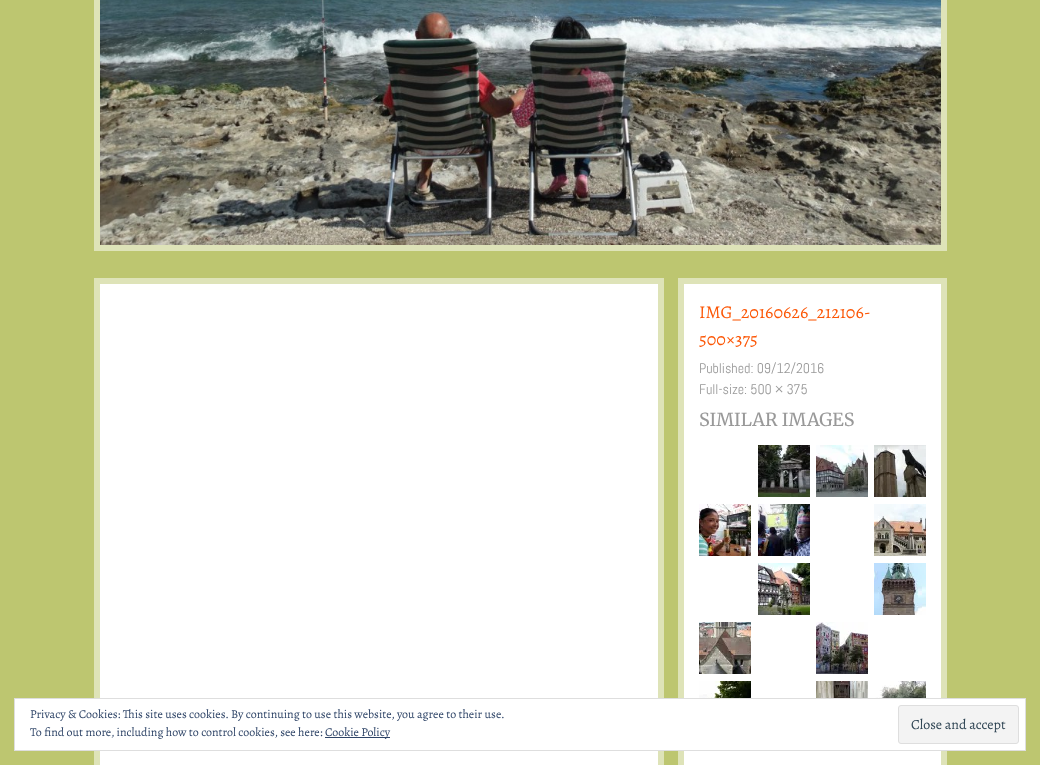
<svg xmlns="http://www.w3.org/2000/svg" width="1040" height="765">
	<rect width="100%" height="100%" fill="#BDC670" />
	<rect x="97" y="-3" width="847" height="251" fill="none" stroke="#DEE3B8" stroke-width="6" />
	<image x="100" y="0" width="841" height="245" href="assets/img1.png" />
	<rect x="97" y="281" width="564" height="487" fill="#FFFFFF" stroke="#DEE3B8" stroke-width="6" />
	<rect x="681" y="281" width="263" height="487" fill="#FFFFFF" stroke="#DEE3B8" stroke-width="6" />
	<g font-family="Alegreya" font-size="18" fill="#FC5605">
		<text x="699" y="318">IMG_20160626_212106-</text>
		<text x="699" y="345">500×375</text>
	</g>
	<g font-family="Abel" font-size="14" fill="#999999">
		<text x="699" y="373">Published: 09/12/2016</text>
		<text x="699" y="394">Full-size: 500 × 375</text>
	</g>
	<text x="699" y="426" font-family="Merriweather" font-size="18" font-weight="300" fill="#999999">SIMILAR IMAGES</text>
	<image x="758" y="445" width="52" height="52" href="assets/img2.png" />
	<image x="816" y="445" width="52" height="52" href="assets/img3.png" />
	<image x="874" y="445" width="52" height="52" href="assets/img4.png" />
	<image x="699" y="504" width="52" height="52" href="assets/img5.png" />
	<image x="758" y="504" width="52" height="52" href="assets/img6.png" />
	<image x="874" y="504" width="52" height="52" href="assets/img7.png" />
	<image x="758" y="563" width="52" height="52" href="assets/img8.png" />
	<image x="874" y="563" width="52" height="52" href="assets/img9.png" />
	<image x="699" y="622" width="52" height="52" href="assets/img10.png" />
	<image x="816" y="622" width="52" height="52" href="assets/img11.png" />
	<image x="699" y="681" width="52" height="17" href="assets/img12.png" />
	<image x="816" y="681" width="52" height="17" href="assets/img13.png" />
	<image x="874" y="681" width="52" height="17" href="assets/img14.png" />
	<rect x="14.5" y="698.5" width="1011" height="52" fill="#FFFFFF" stroke="#DEDEDE" />
	<g font-family="Alegreya" font-size="12" fill="#2E4467">
		<text x="30" y="718">Privacy &amp; Cookies: This site uses cookies. By continuing to use this website, you agree to their use.</text>
		<text x="30" y="736">To find out more, including how to control cookies, see here:</text>
	</g>
	<rect x="325" y="737" width="65" height="1" fill="#2E4467" />
	<text x="325" y="736" font-family="Alegreya" font-size="12" fill="#2E4467">Cookie Policy</text>
	<rect x="898.5" y="705.5" width="120" height="38" rx="2.5" fill="#F3F3F3" stroke="#DEDEDE" />
	<text x="911" y="729" font-family="Alegreya" font-size="14" fill="#2E4453">Close and accept</text>
</svg>
